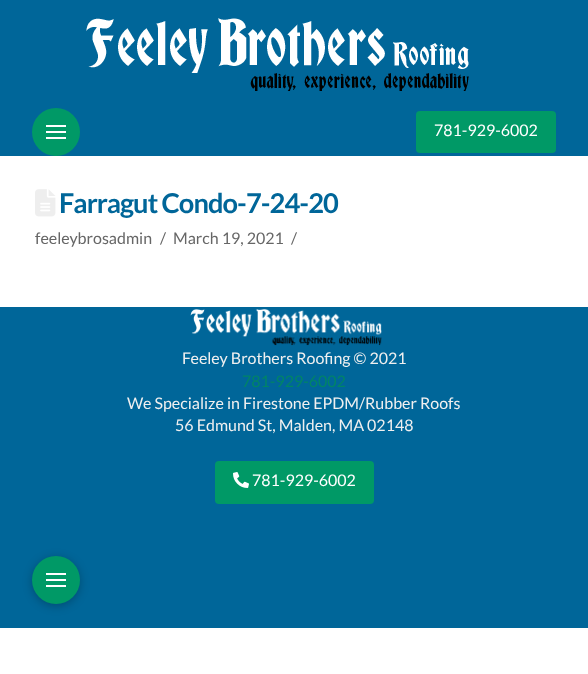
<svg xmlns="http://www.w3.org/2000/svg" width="588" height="674">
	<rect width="100%" height="100%" fill="#FFFFFF" />
	<rect x="0" y="0" width="588" height="156" fill="#006699" />
	<image x="86" y="18" width="383" height="73" href="assets/img1.png" />
	<circle cx="56" cy="132" r="24" fill="#009966" />
	<rect x="46" y="125" width="20" height="2" fill="#FFFFFF" />
	<rect x="46" y="131" width="20" height="2" fill="#FFFFFF" />
	<rect x="46" y="137" width="20" height="2" fill="#FFFFFF" />
	<rect x="416" y="111" width="140" height="42" rx="4" fill="#009966" />
	<text x="434" y="136" font-family="Lato" font-size="16" fill="#FFFFFF">781-929-6002</text>
	<image x="35" y="189" width="21" height="28" href="assets/img2.png" />
	<text x="59" y="213" font-family="Lato" font-size="27.25" font-weight="700" letter-spacing="-0.95" fill="#006699">Farragut Condo-7-24-20</text>
	<g font-family="Lato" font-size="16" fill="#666666">
		<text x="35" y="244">feeleybrosadmin</text>
		<text x="160" y="244">/</text>
		<text x="173" y="244">March 19, 2021</text>
		<text x="291" y="244">/</text>
	</g>
	<rect x="0" y="307" width="588" height="321" fill="#006699" />
	<image x="190" y="309" width="192" height="37" href="assets/img3.png" />
	<text x="182" y="364" font-family="Lato" font-size="16" fill="#F0F0F0">Feeley Brothers Roofing © 2021</text>
	<text x="242" y="387" font-family="Lato" font-size="16" fill="#008566">781-929-6002</text>
	<g font-family="Lato" font-size="16" fill="#F0F0F0">
		<text x="127" y="409">We Specialize in Firestone EPDM/Rubber Roofs</text>
		<text x="175" y="431">56 Edmund St, Malden, MA 02148</text>
	</g>
	<rect x="215" y="461" width="159" height="43" rx="4" fill="#009966" />
	<image x="233" y="472" width="16" height="16" href="assets/img4.png" />
	<text x="252" y="486" font-family="Lato" font-size="16" fill="#FFFFFF">781-929-6002</text>
	<rect x="32" y="558" width="48" height="48" rx="24" fill="#000000" fill-opacity="0.25" filter="blur(5px)" />
	<circle cx="56" cy="580" r="24" fill="#009966" />
	<rect x="46" y="573" width="20" height="2" fill="#FFFFFF" />
	<rect x="46" y="579" width="20" height="2" fill="#FFFFFF" />
	<rect x="46" y="585" width="20" height="2" fill="#FFFFFF" />
</svg>
